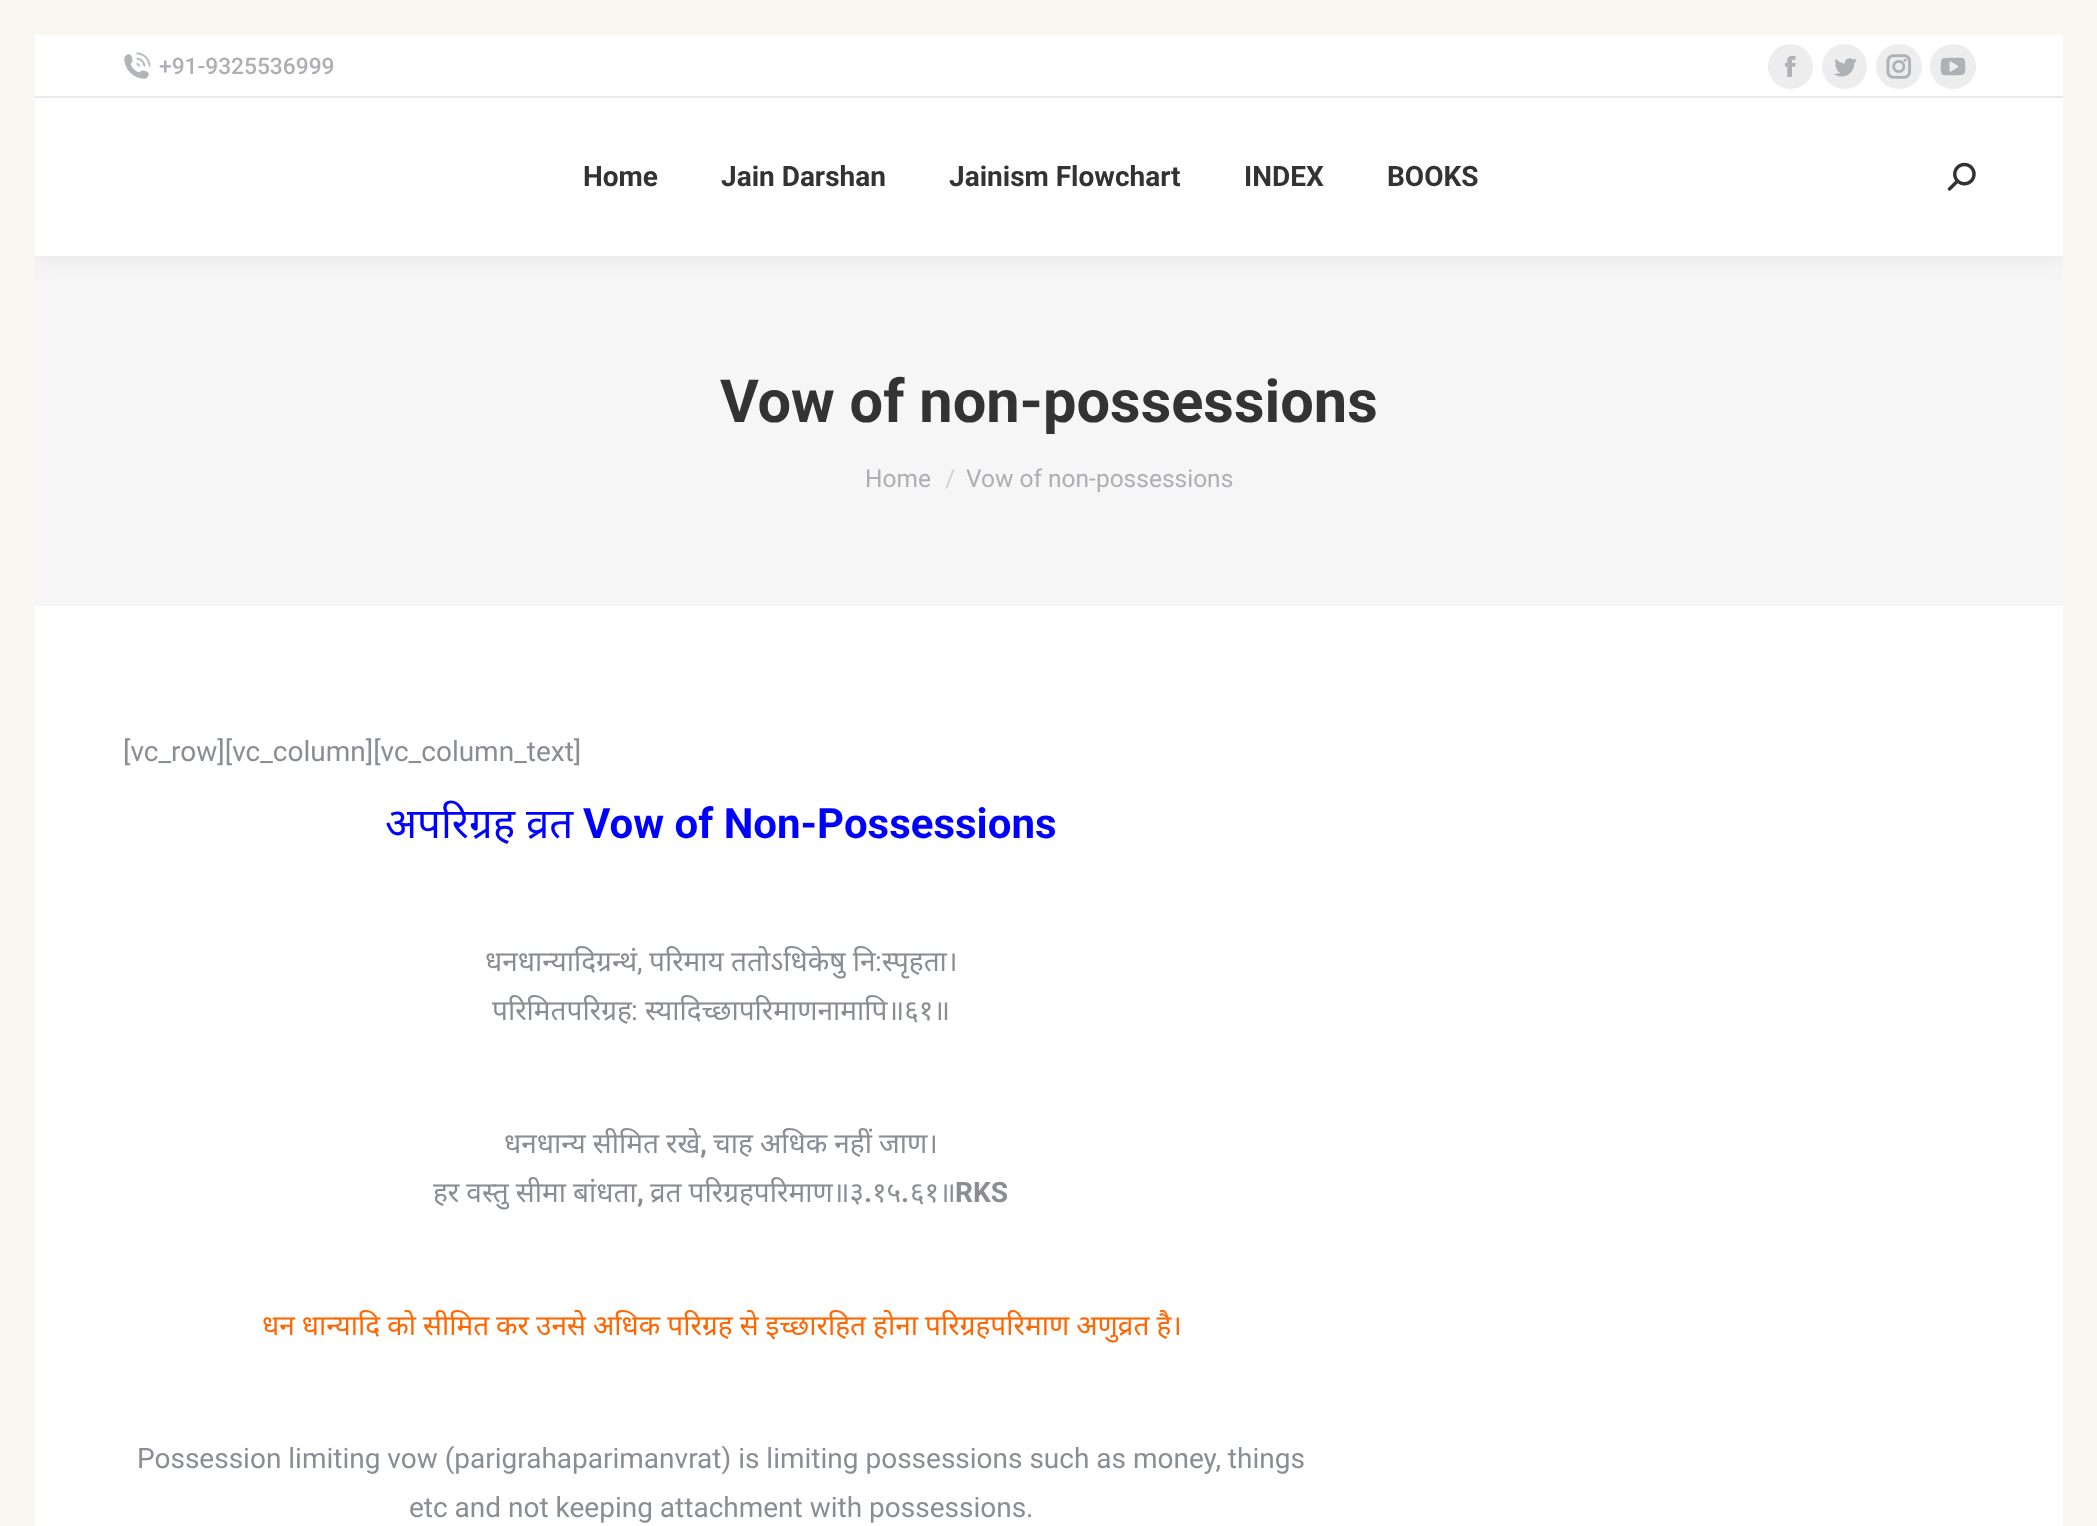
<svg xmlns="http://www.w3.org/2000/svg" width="2097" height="1526">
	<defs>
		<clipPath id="clip1"><rect x="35" y="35" width="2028" height="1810" /></clipPath>
	</defs>
	<rect width="100%" height="100%" fill="#FAF7F0" />
	<rect x="35" y="606" width="2028" height="920" fill="#FFFFFF" />
	<rect x="35" y="256" width="2028" height="350" fill="#F6F6F6" />
	<g clip-path="url(#clip1)">
		<rect x="33" y="33" width="2032" height="224" fill="#000000" fill-opacity="0.07" filter="blur(13px)" />
	</g>
	<rect x="35" y="35" width="2028" height="221" fill="#FFFFFF" />
	<image x="124" y="52" width="27" height="27" href="assets/img1.png" />
	<text x="159" y="74" font-family="Roboto" font-size="22.75" font-weight="500" fill="#ADAFB3">+91-9325536999</text>
	<circle cx="1790.5" cy="66.5" r="22.5" fill="#EDEDED" />
	<image x="1785" y="56" width="11" height="21" href="assets/img2.png" />
	<circle cx="1844.5" cy="66.5" r="22.5" fill="#EDEDED" />
	<image x="1834" y="58" width="23" height="19" href="assets/img3.png" />
	<rect x="1876" y="44" width="46" height="45" rx="22.5" fill="#EDEDED" />
	<image x="1886" y="54" width="25" height="25" href="assets/img4.png" />
	<rect x="1930" y="44" width="46" height="45" rx="22.5" fill="#EDEDED" />
	<image x="1940" y="57" width="26" height="19" href="assets/img5.png" />
	<rect x="35" y="96" width="2028" height="2" fill="#E9E9E9" />
	<g font-family="Roboto" font-size="28" font-weight="700" fill="#333333">
		<text x="583" y="186">Home</text>
		<text x="721" y="186">Jain Darshan</text>
		<text x="949" y="186">Jainism Flowchart</text>
		<text x="1244" y="186">INDEX</text>
		<text x="1387" y="186">BOOKS</text>
	</g>
	<image x="1947" y="162" width="29" height="29" href="assets/img6.png" />
	<text x="720" y="422" font-family="Roboto" font-size="59.5" font-weight="700" fill="#333333">Vow of non-possessions</text>
	<text x="865" y="487" font-family="Roboto" font-size="24.5" fill="#ADAFB3">Home</text>
	<text x="945" y="487" font-family="Roboto" font-size="24.5" fill="#D2D3D5">/</text>
	<text x="966" y="487" font-family="Roboto" font-size="24.5" fill="#ADAFB3">Vow of non-possessions</text>
	<text x="123" y="761" font-family="Roboto" font-size="28" fill="#8B8D94">[vc_row][vc_column][vc_column_text]</text>
	<g font-family="Noto Sans" font-size="42" fill="#0000FF">
		<text x="385" y="838">अपरिग्रह</text>
		<text x="526" y="838">व्रत</text>
	</g>
	<text x="583" y="838" font-family="Roboto" font-size="42" font-weight="700" fill="#0000FF">Vow of Non-Possessions</text>
	<text x="485" y="971" font-family="Noto Sans" font-size="28" fill="#8B8D94">धनधान्यादिग्रन्थं</text>
	<text x="637" y="971" font-family="Roboto" font-size="28" fill="#8B8D94">,</text>
	<text x="649" y="971" font-family="Noto Sans" font-size="28" fill="#8B8D94">परिमाय ततोऽधिकेषु नि</text>
	<text x="875" y="971" font-family="Roboto" font-size="28" fill="#8B8D94">:</text>
	<g font-family="Noto Sans" font-size="28" fill="#8B8D94">
		<text x="882" y="971">स्पृहता।</text>
		<text x="492" y="1020">परिमितपरिग्रह</text>
	</g>
	<text x="631" y="1020" font-family="Roboto" font-size="28" fill="#8B8D94">:</text>
	<g font-family="Noto Sans" font-size="28" fill="#8B8D94">
		<text x="645" y="1020">स्यादिच्छापरिमाणनामापि॥६१॥</text>
		<text x="504" y="1153" word-spacing="-0.25">धनधान्य सीमित रखे</text>
	</g>
	<text x="700" y="1153" font-family="Roboto" font-size="28" font-weight="700" fill="#8B8D94">,</text>
	<g font-family="Noto Sans" font-size="28" fill="#8B8D94">
		<text x="713" y="1153" word-spacing="-0.25">चाह अधिक नहीं जाण।</text>
		<text x="433" y="1202" word-spacing="-0.25">हर वस्तु सीमा बांधता</text>
	</g>
	<text x="637" y="1202" font-family="Roboto" font-size="28" font-weight="700" fill="#8B8D94">,</text>
	<text x="650" y="1202" word-spacing="-0.25" font-family="Noto Sans" font-size="28" fill="#8B8D94">व्रत परिग्रहपरिमाण॥३</text>
	<text x="864" y="1202" font-family="Roboto" font-size="28" font-weight="700" fill="#8B8D94">.</text>
	<text x="872" y="1202" font-family="Noto Sans" font-size="28" fill="#8B8D94">१५</text>
	<text x="901" y="1202" font-family="Roboto" font-size="28" font-weight="700" fill="#8B8D94">.</text>
	<text x="910" y="1202" font-family="Noto Sans" font-size="28" fill="#8B8D94">६१॥</text>
	<text x="955" y="1202" font-family="Roboto" font-size="28" font-weight="700" fill="#8B8D94">RKS</text>
	<text x="262" y="1335" word-spacing="-0.25" font-family="Noto Sans" font-size="28" fill="#FF6600">धन धान्यादि को सीमित कर उनसे अधिक परिग्रह से इच्छारहित होना परिग्रहपरिमाण अणुव्रत है।</text>
	<g font-family="Roboto" font-size="28" fill="#8B8D94">
		<text x="137" y="1468">Possession limiting vow (parigrahaparimanvrat) is limiting possessions such as money, things</text>
		<text x="409" y="1517">etc and not keeping attachment with possessions.</text>
	</g>
</svg>
